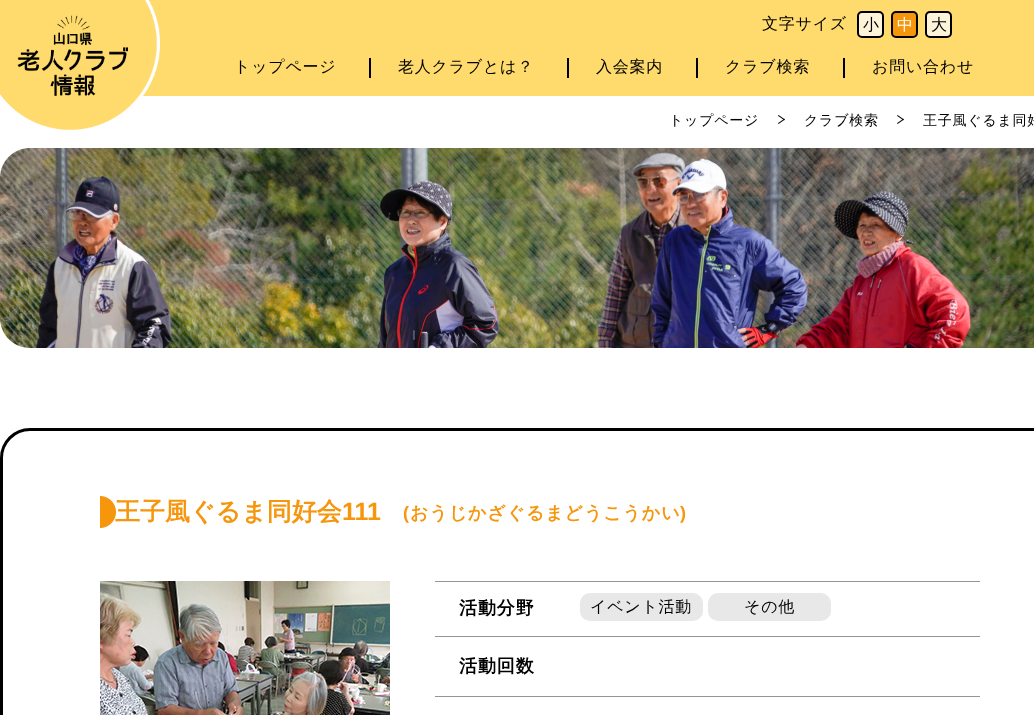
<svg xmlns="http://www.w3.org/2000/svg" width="1034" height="715">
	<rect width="100%" height="100%" fill="#FFFFFF" />
	<rect x="142" y="0" width="892" height="96" fill="#FFDB6D" />
	<image x="0" y="0" width="160" height="131" href="assets/img1.png" />
	<text x="762" y="29" font-family="WenQuanYi Zen Hei" font-size="16" font-weight="500" letter-spacing="0.75" fill="#000100">文字サイズ</text>
	<rect x="858" y="12" width="25" height="25" rx="4" fill="#FCF3D8" stroke="#000000" stroke-width="2" />
	<text x="863" y="30" font-family="WenQuanYi Zen Hei" font-size="16" font-weight="500" fill="#000100">小</text>
	<rect x="892" y="12" width="25" height="25" rx="4" fill="#F5960D" stroke="#000000" stroke-width="2" />
	<text x="897" y="30" font-family="WenQuanYi Zen Hei" font-size="16" font-weight="500" fill="#FFFFFF">中</text>
	<rect x="926" y="12" width="25" height="25" rx="4" fill="#FCF3D8" stroke="#000000" stroke-width="2" />
	<text x="931" y="30" font-family="WenQuanYi Zen Hei" font-size="16" font-weight="500" fill="#000100">大</text>
	<text x="234" y="72" font-family="WenQuanYi Zen Hei" font-size="16" font-weight="500" letter-spacing="0.75" fill="#000100">トップページ</text>
	<rect x="369" y="58" width="2" height="20" fill="#000000" />
	<text x="398" y="72" font-family="WenQuanYi Zen Hei" font-size="16" font-weight="500" letter-spacing="0.75" fill="#000100">老人クラブとは？</text>
	<rect x="567" y="58" width="2" height="20" fill="#000000" />
	<text x="596" y="72" font-family="WenQuanYi Zen Hei" font-size="16" font-weight="500" letter-spacing="0.75" fill="#000100">入会案内</text>
	<rect x="696" y="58" width="2" height="20" fill="#000000" />
	<text x="725" y="72" font-family="WenQuanYi Zen Hei" font-size="16" font-weight="500" letter-spacing="0.75" fill="#000100">クラブ検索</text>
	<rect x="843" y="58" width="2" height="20" fill="#000000" />
	<text x="872" y="72" font-family="WenQuanYi Zen Hei" font-size="16" font-weight="500" letter-spacing="0.75" fill="#000100">お問い合わせ</text>
	<text x="669" y="125" font-family="WenQuanYi Zen Hei" font-size="14" font-weight="500" letter-spacing="0.75" fill="#000100">トップページ</text>
	<image x="778" y="115" width="7" height="9" href="assets/img2.png" />
	<text x="804" y="125" font-family="WenQuanYi Zen Hei" font-size="14" font-weight="500" letter-spacing="0.75" fill="#000100">クラブ検索</text>
	<image x="897" y="115" width="7" height="9" href="assets/img2.png" />
	<text x="923" y="125" font-family="WenQuanYi Zen Hei" font-size="14" font-weight="500" letter-spacing="0.75" fill="#000100">王子風ぐるま同好</text>
	<image x="0" y="148" width="1034" height="200" href="assets/img3.png" />
	<rect x="1.5" y="429.5" width="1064" height="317" rx="28.5" fill="none" stroke="#000000" stroke-width="3" />
	<text x="115" y="520" font-family="WenQuanYi Zen Hei" font-size="25" font-weight="700" fill="#F5960D">王子風ぐるま同好会</text>
	<image x="100" y="496" width="16" height="32" href="assets/img4.png" />
	<text x="342" y="520" font-family="Liberation Sans" font-size="25" font-weight="700" fill="#F5960D">111</text>
	<text x="403" y="519" font-family="Liberation Sans" font-size="18" font-weight="700" letter-spacing="0.9" fill="#F5960D">(</text>
	<text x="410" y="519" font-family="WenQuanYi Zen Hei" font-size="18" font-weight="700" letter-spacing="0.9" fill="#F5960D">おうじかざぐるまどうこうかい</text>
	<text x="680" y="519" font-family="Liberation Sans" font-size="18" font-weight="700" letter-spacing="0.9" fill="#F5960D">)</text>
	<image x="100" y="581" width="290" height="134" href="assets/img5.png" />
	<rect x="435" y="581" width="545" height="1" fill="#959595" />
	<rect x="435" y="636" width="545" height="1" fill="#959595" />
	<text x="459" y="614" font-family="WenQuanYi Zen Hei" font-size="18" font-weight="700" letter-spacing="0.9" fill="#000100">活動分野</text>
	<rect x="580" y="593" width="123" height="28" rx="10" fill="#E8E8E8" />
	<text x="590" y="612" font-family="WenQuanYi Zen Hei" font-size="16" font-weight="500" letter-spacing="0.75" fill="#000100">イベント活動</text>
	<rect x="708" y="593" width="123" height="28" rx="10" fill="#E8E8E8" />
	<text x="744" y="612" font-family="WenQuanYi Zen Hei" font-size="16" font-weight="500" letter-spacing="0.75" fill="#000100">その他</text>
	<rect x="435" y="696" width="545" height="1" fill="#959595" />
	<text x="459" y="672" font-family="WenQuanYi Zen Hei" font-size="18" font-weight="700" letter-spacing="0.9" fill="#000100">活動回数</text>
</svg>
